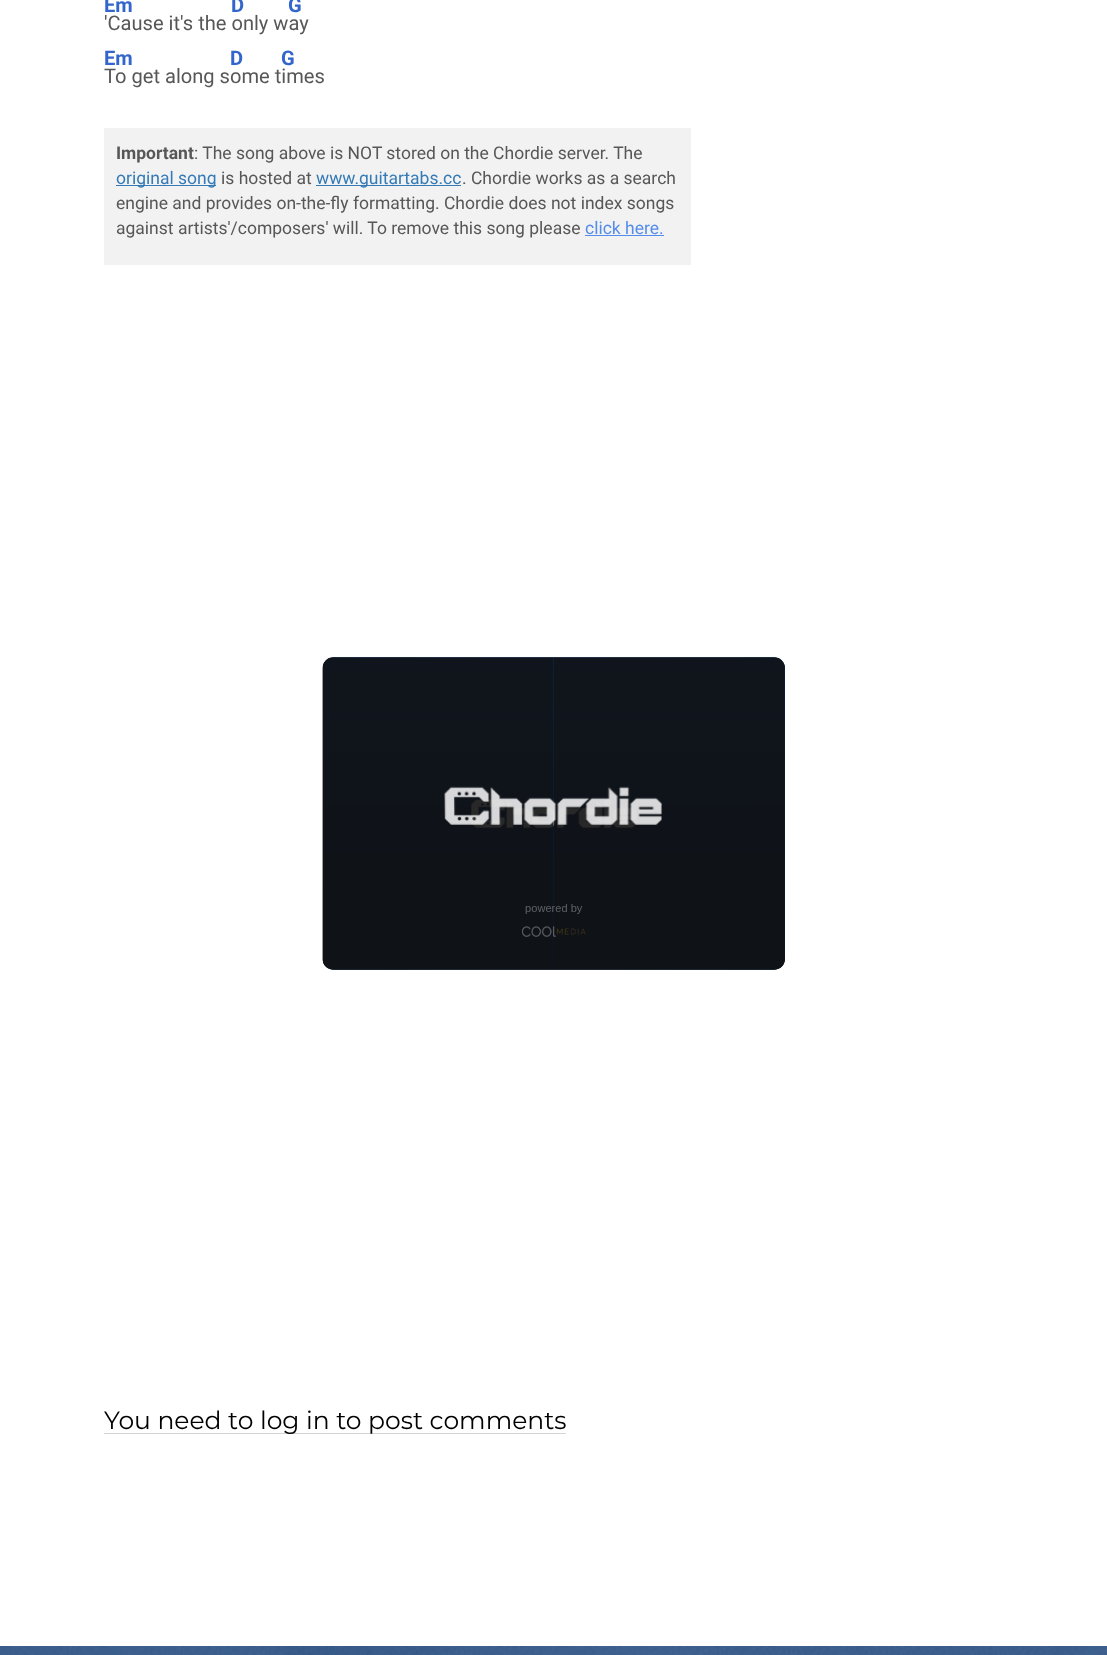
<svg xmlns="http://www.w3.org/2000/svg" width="1107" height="1655">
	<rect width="100%" height="100%" fill="#FFFFFF" />
	<g font-family="Roboto" font-size="20.1" font-weight="700" fill="#3366CC">
		<text x="104" y="12">Em</text>
		<text x="231" y="12">D</text>
		<text x="288" y="12">G</text>
	</g>
	<text x="104" y="30" font-family="Roboto" font-size="20.1" fill="#575757">'Cause it's the only way</text>
	<g font-family="Roboto" font-size="20.1" font-weight="700" fill="#3366CC">
		<text x="104" y="65">Em</text>
		<text x="230" y="65">D</text>
		<text x="281" y="65">G</text>
	</g>
	<text x="104" y="83" font-family="Roboto" font-size="20.1" fill="#575757">To get along some times</text>
	<rect x="104" y="128" width="587" height="137" fill="#F2F2F2" />
	<text x="116" y="159" font-family="Roboto" font-size="17.5" font-weight="700" fill="#575757">Important</text>
	<text x="194" y="159" font-family="Roboto" font-size="17.5" fill="#575757">: The song above is NOT stored on the Chordie server. The</text>
	<rect x="116" y="185" width="100" height="1" fill="#337AB7" />
	<text x="116" y="184" font-family="Roboto" font-size="17.5" fill="#337AB7">original song</text>
	<text x="221" y="184" font-family="Roboto" font-size="17.5" fill="#575757">is hosted at</text>
	<rect x="316" y="185" width="145" height="1" fill="#337AB7" />
	<text x="316" y="184" font-family="Roboto" font-size="17.5" fill="#337AB7">www.guitartabs.cc</text>
	<g font-family="Roboto" font-size="17.5" fill="#575757">
		<text x="462" y="184">. Chordie works as a search</text>
		<text x="116" y="209">engine and provides on-the-fly formatting. Chordie does not index songs</text>
		<text x="116" y="234">against artists'/composers' will. To remove this song please</text>
	</g>
	<text x="585" y="234" font-family="Roboto" font-size="17.5" fill="#548CEB">click here.</text>
	<rect x="585" y="235" width="79" height="1" fill="#548CEB" />
	<image x="322" y="657" width="463" height="313" href="assets/img1.png" />
	<rect x="104" y="1433" width="462" height="1" fill="#D4D4D4" />
	<text x="104" y="1429" font-family="Montserrat" font-size="25" fill="#000000">You need to log in to post comments</text>
	<image x="0" y="1646" width="1107" height="9" href="assets/img2.png" />
</svg>
